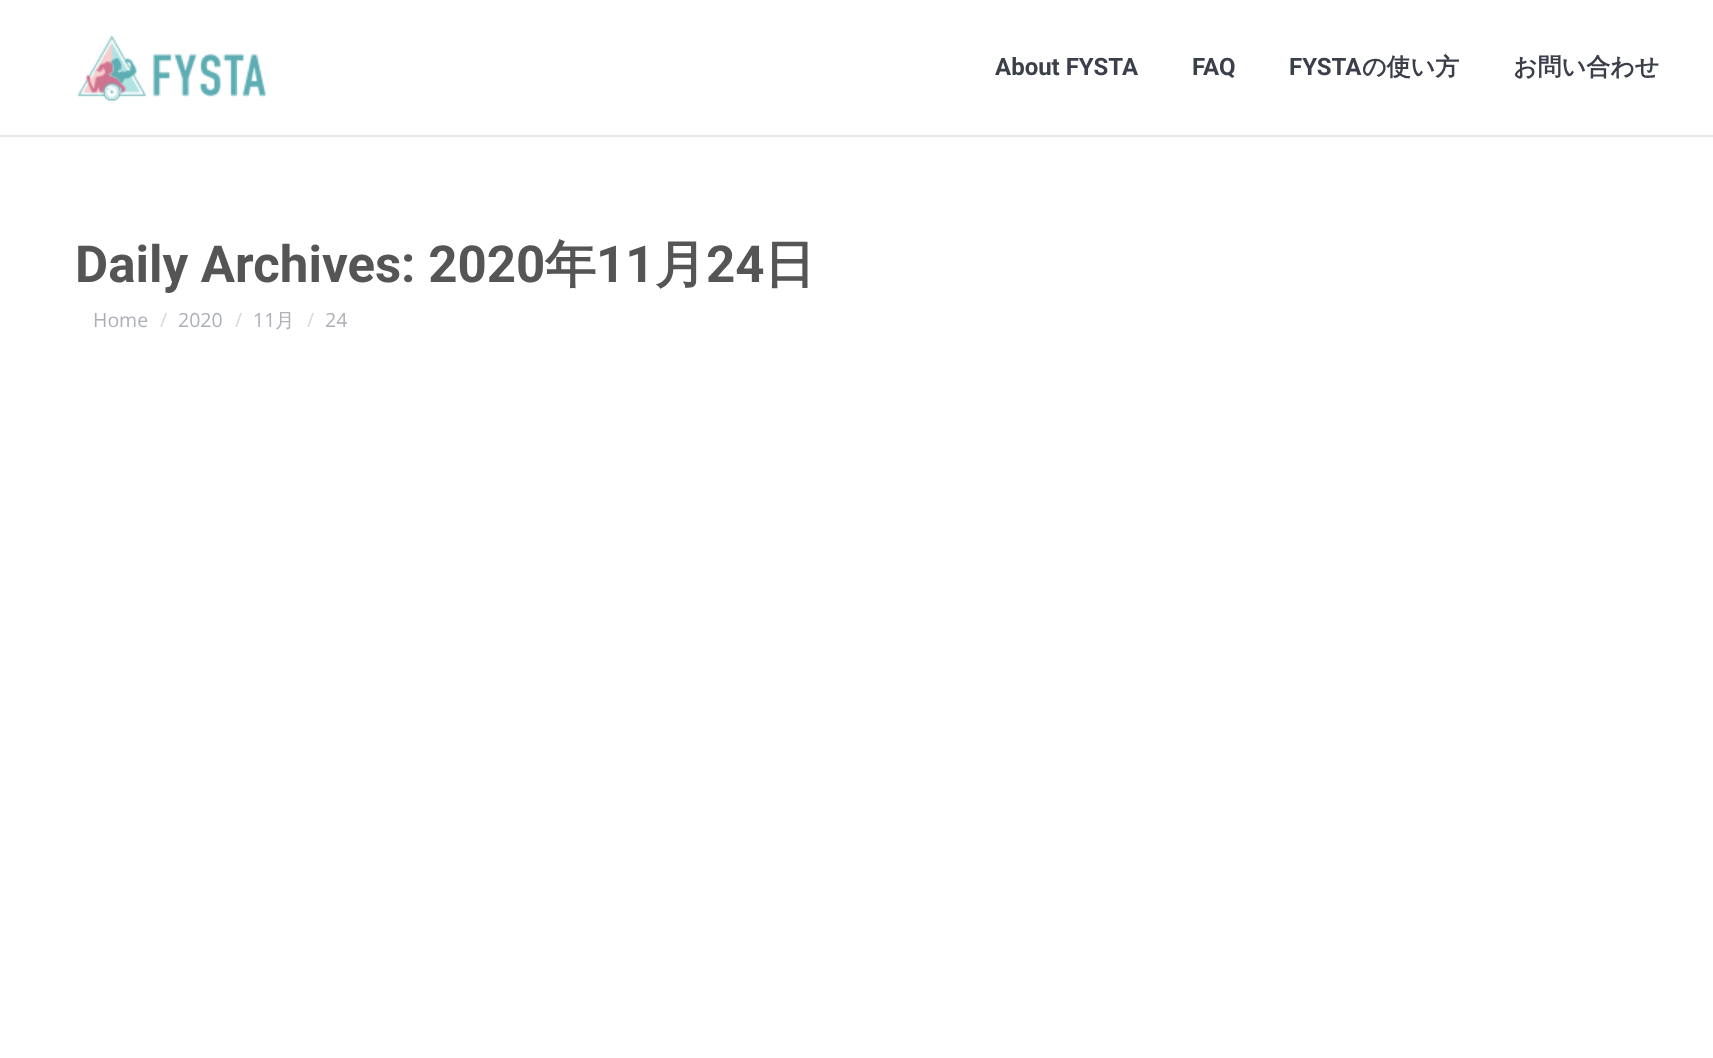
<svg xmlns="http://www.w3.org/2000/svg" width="1713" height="1058">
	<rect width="100%" height="100%" fill="#FFFFFF" />
	<rect x="0" y="135" width="1713" height="2" fill="#E6E7E9" />
	<image x="78" y="36" width="188" height="65" href="assets/img1.png" />
	<g font-family="Roboto" font-size="24" font-weight="700" fill="#3B3F4A">
		<text x="995" y="75">About FYSTA</text>
		<text x="1192" y="75">FAQ</text>
		<text x="1289" y="75">FYSTA</text>
	</g>
	<g font-family="WenQuanYi Zen Hei" font-size="24" font-weight="700" fill="#3B3F4A">
		<text x="1362" y="75">の使い方</text>
		<text x="1513" y="75">お問い合わせ</text>
	</g>
	<text x="75" y="282" font-family="Roboto" font-size="51" font-weight="700" fill="#555555">Daily Archives: 2020</text>
	<text x="545" y="282" font-family="WenQuanYi Zen Hei" font-size="51" font-weight="700" fill="#555555">年</text>
	<text x="596" y="282" font-family="Roboto" font-size="51" font-weight="700" fill="#555555">11</text>
	<text x="655" y="282" font-family="WenQuanYi Zen Hei" font-size="51" font-weight="700" fill="#555555">月</text>
	<text x="706" y="282" font-family="Roboto" font-size="51" font-weight="700" fill="#555555">24</text>
	<text x="764" y="282" font-family="WenQuanYi Zen Hei" font-size="51" font-weight="700" fill="#555555">日</text>
	<text x="93" y="327" font-family="Open Sans" font-size="19.5" fill="#ADB0B6">Home</text>
	<text x="160" y="327" font-family="Open Sans" font-size="19.5" fill="#D6D8DB">/</text>
	<text x="178" y="327" font-family="Open Sans" font-size="19.5" fill="#ADB0B6">2020</text>
	<text x="235" y="327" font-family="Open Sans" font-size="19.5" fill="#D6D8DB">/</text>
	<text x="253" y="327" font-family="Open Sans" font-size="19.5" fill="#ADB0B6">11</text>
	<text x="275" y="327" font-family="WenQuanYi Zen Hei" font-size="19.5" font-weight="500" fill="#ADB0B6">月</text>
	<text x="307" y="327" font-family="Open Sans" font-size="19.5" fill="#D6D8DB">/</text>
	<text x="325" y="327" font-family="Open Sans" font-size="19.5" fill="#ADB0B6">24</text>
</svg>
